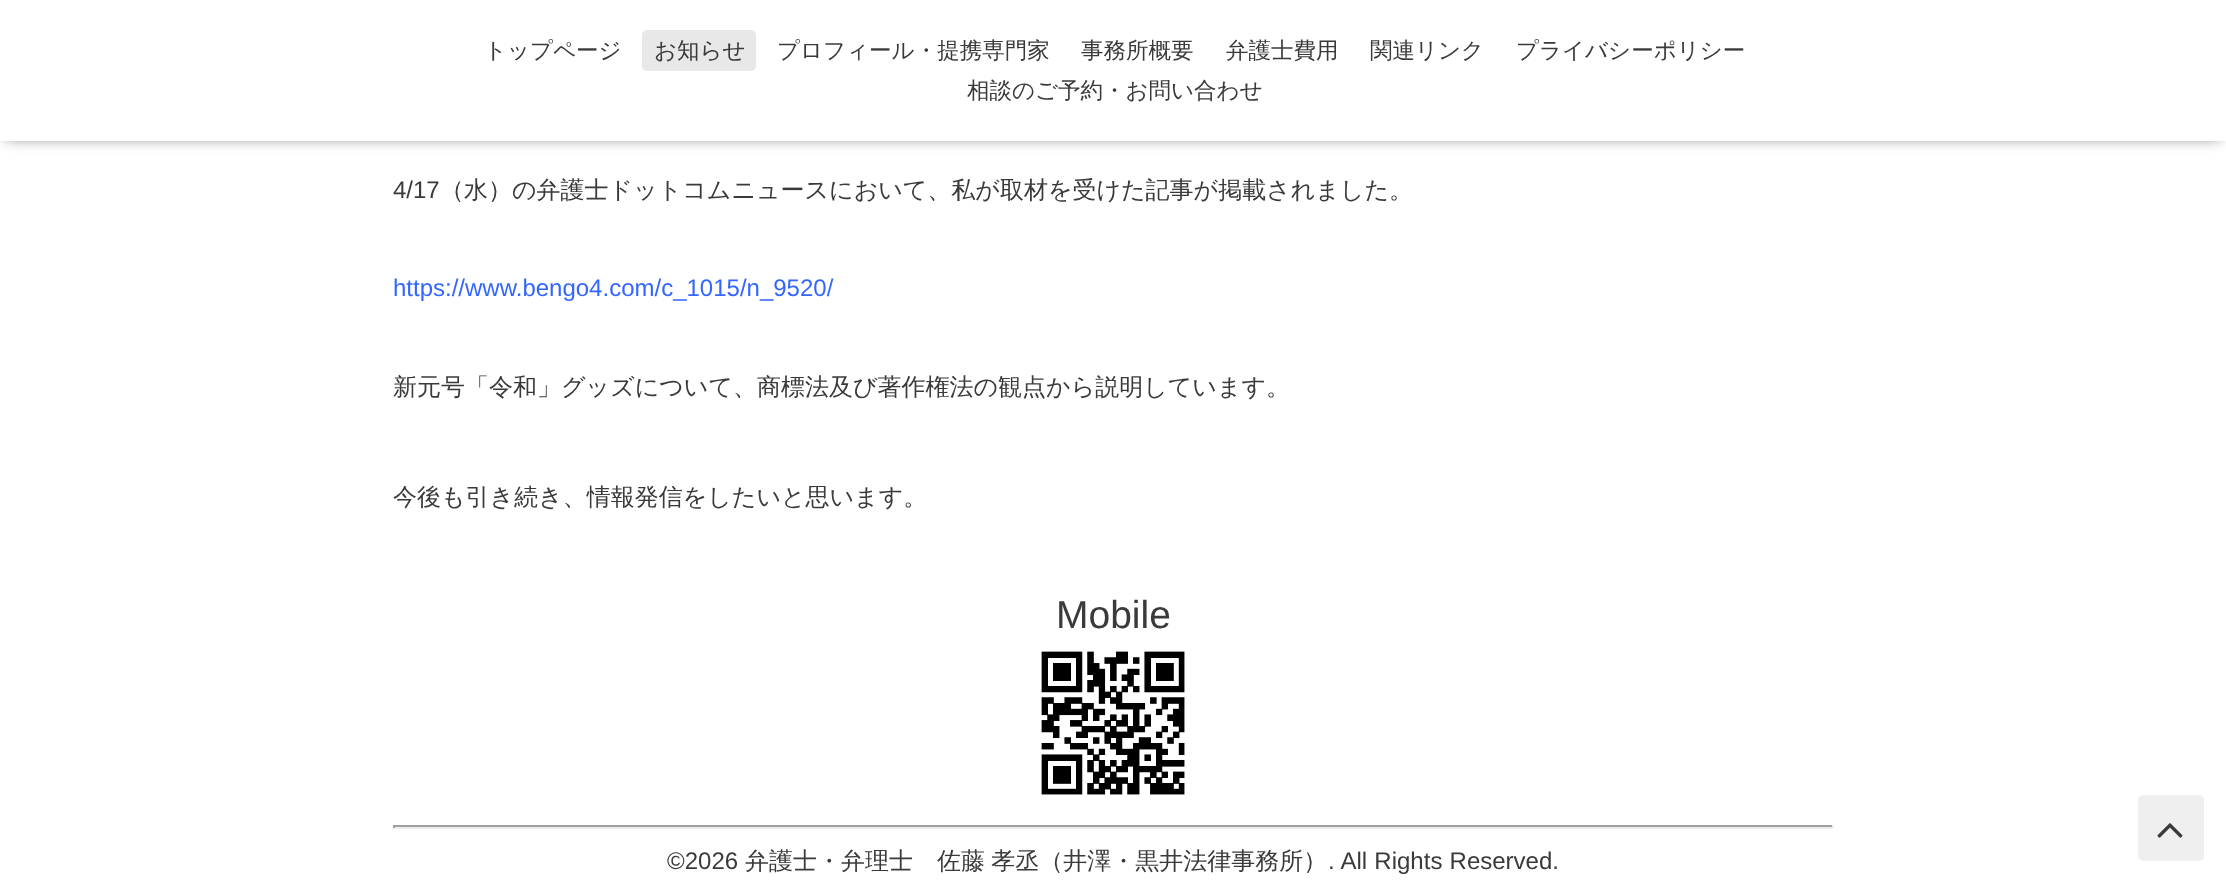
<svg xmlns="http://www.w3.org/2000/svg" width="2226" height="883">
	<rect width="100%" height="100%" fill="#FFFFFF" />
	<rect x="6" y="8" width="2214" height="129" fill="#000000" fill-opacity="0.6" filter="blur(7.5px)" />
	<rect x="0" y="0" width="2226" height="141" fill="#FFFFFF" />
	<text x="484" y="58" font-family="WenQuanYi Zen Hei" font-size="22.5" font-weight="500" fill="#3A3A3A">トップページ</text>
	<rect x="642" y="30" width="114" height="41" rx="5" fill="#E8E8E8" />
	<g font-family="WenQuanYi Zen Hei" font-size="22.5" font-weight="500" fill="#3A3A3A">
		<text x="654" y="58">お知らせ</text>
		<text x="777" y="58">プロフィール・提携専門家</text>
		<text x="1081" y="58">事務所概要</text>
		<text x="1226" y="58">弁護士費用</text>
		<text x="1370" y="58">関連リンク</text>
		<text x="1516" y="58">プライバシーポリシー</text>
		<text x="967" y="98">相談のご予約・お問い合わせ</text>
	</g>
	<text x="393" y="198" font-family="Liberation Sans" font-size="24" fill="#3A3A3A">4/17</text>
	<text x="440" y="198" font-family="WenQuanYi Zen Hei" font-size="24" font-weight="500" fill="#3A3A3A">（水）の弁護士ドットコムニュースにおいて、私が取材を受けた記事が掲載されました。</text>
	<text x="393" y="296" font-family="Liberation Sans" font-size="24" fill="#3366FF">https://www.bengo4.com/c_1015/n_9520/</text>
	<g font-family="WenQuanYi Zen Hei" font-size="24" font-weight="500" fill="#3A3A3A">
		<text x="393" y="395">新元号「令和」グッズについて、商標法及び著作権法の観点から説明しています。</text>
		<text x="393" y="505">今後も引き続き、情報発信をしたいと思います。</text>
	</g>
	<text x="1056" y="628" font-family="Liberation Sans" font-size="39" fill="#3A3A3A">Mobile</text>
	<image x="1041" y="651" width="144" height="144" href="assets/img1.png" />
	<rect x="393" y="825" width="1440" height="2" fill="#9F9F9F" />
	<rect x="1832" y="825" width="2" height="3" fill="#EEEEEE" />
	<rect x="393" y="827" width="1440" height="2" fill="#EEEEEE" />
	<rect x="393" y="825" width="2" height="3" fill="#9F9F9F" />
	<text x="667" y="869" font-family="Liberation Sans" font-size="24" fill="#3A3A3A">©2026</text>
	<text x="745" y="869" word-spacing="-1" font-family="WenQuanYi Zen Hei" font-size="24" font-weight="500" fill="#3A3A3A">弁護士・弁理士　佐藤 孝丞（井澤・黒井法律事務所）</text>
	<text x="1328" y="869" word-spacing="0.5" font-family="Liberation Sans" font-size="24" fill="#3A3A3A">. All Rights Reserved.</text>
	<rect x="2138" y="795" width="66" height="66" rx="5" fill="#EFEFEF" />
	<image x="2157" y="823" width="26" height="15" href="assets/img2.png" />
</svg>
